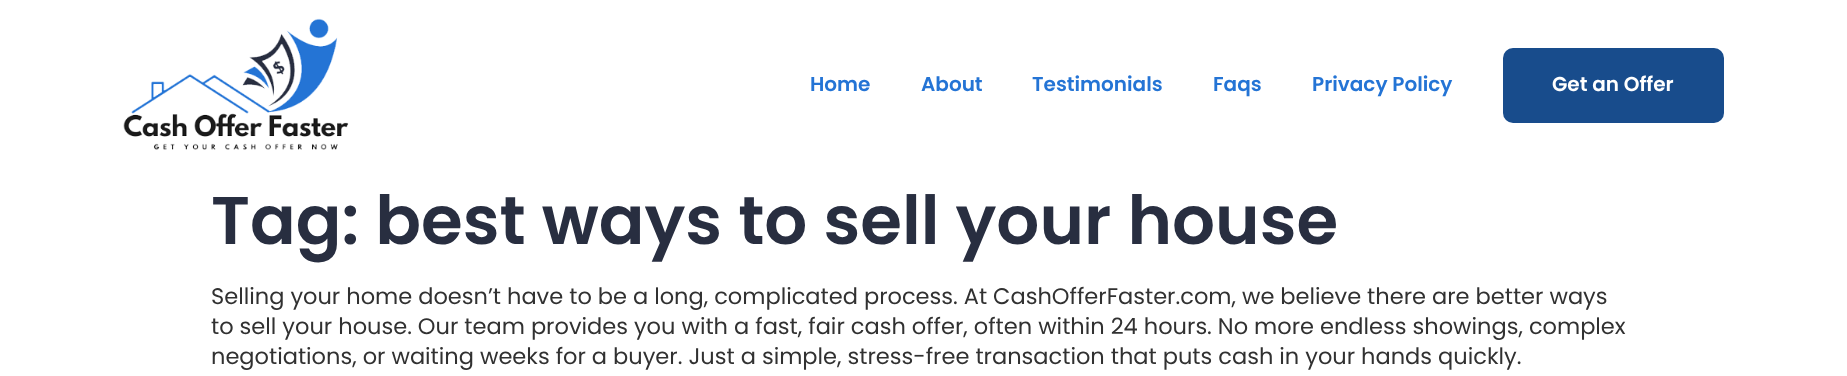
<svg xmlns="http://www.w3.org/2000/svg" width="1847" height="376">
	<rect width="100%" height="100%" fill="#FFFFFF" />
	<image x="123" y="18" width="226" height="132" href="assets/img1.png" />
	<g font-family="Poppins" font-size="20" font-weight="600" fill="#2474D5">
		<text x="810" y="91">Home</text>
		<text x="921" y="91">About</text>
		<text x="1032" y="91">Testimonials</text>
		<text x="1213" y="91">Faqs</text>
		<text x="1312" y="91">Privacy Policy</text>
	</g>
	<rect x="1503" y="48" width="221" height="75" rx="10" fill="#184C8C" />
	<text x="1552" y="91" font-family="Poppins" font-size="20" font-weight="600" fill="#FFFFFF">Get an Offer</text>
	<text x="211" y="244" font-family="Poppins" font-size="67.5" font-weight="600" fill="#282E40">Tag: best ways to sell your house</text>
	<g font-family="Poppins" font-size="22.5" fill="#313131">
		<text x="211" y="304">Selling your home doesn’t have to be a long, complicated process. At CashOfferFaster.com, we believe there are better ways</text>
		<text x="211" y="334">to sell your house. Our team provides you with a fast, fair cash offer, often within 24 hours. No more endless showings, complex</text>
		<text x="211" y="364">negotiations, or waiting weeks for a buyer. Just a simple, stress-free transaction that puts cash in your hands quickly.</text>
	</g>
</svg>
